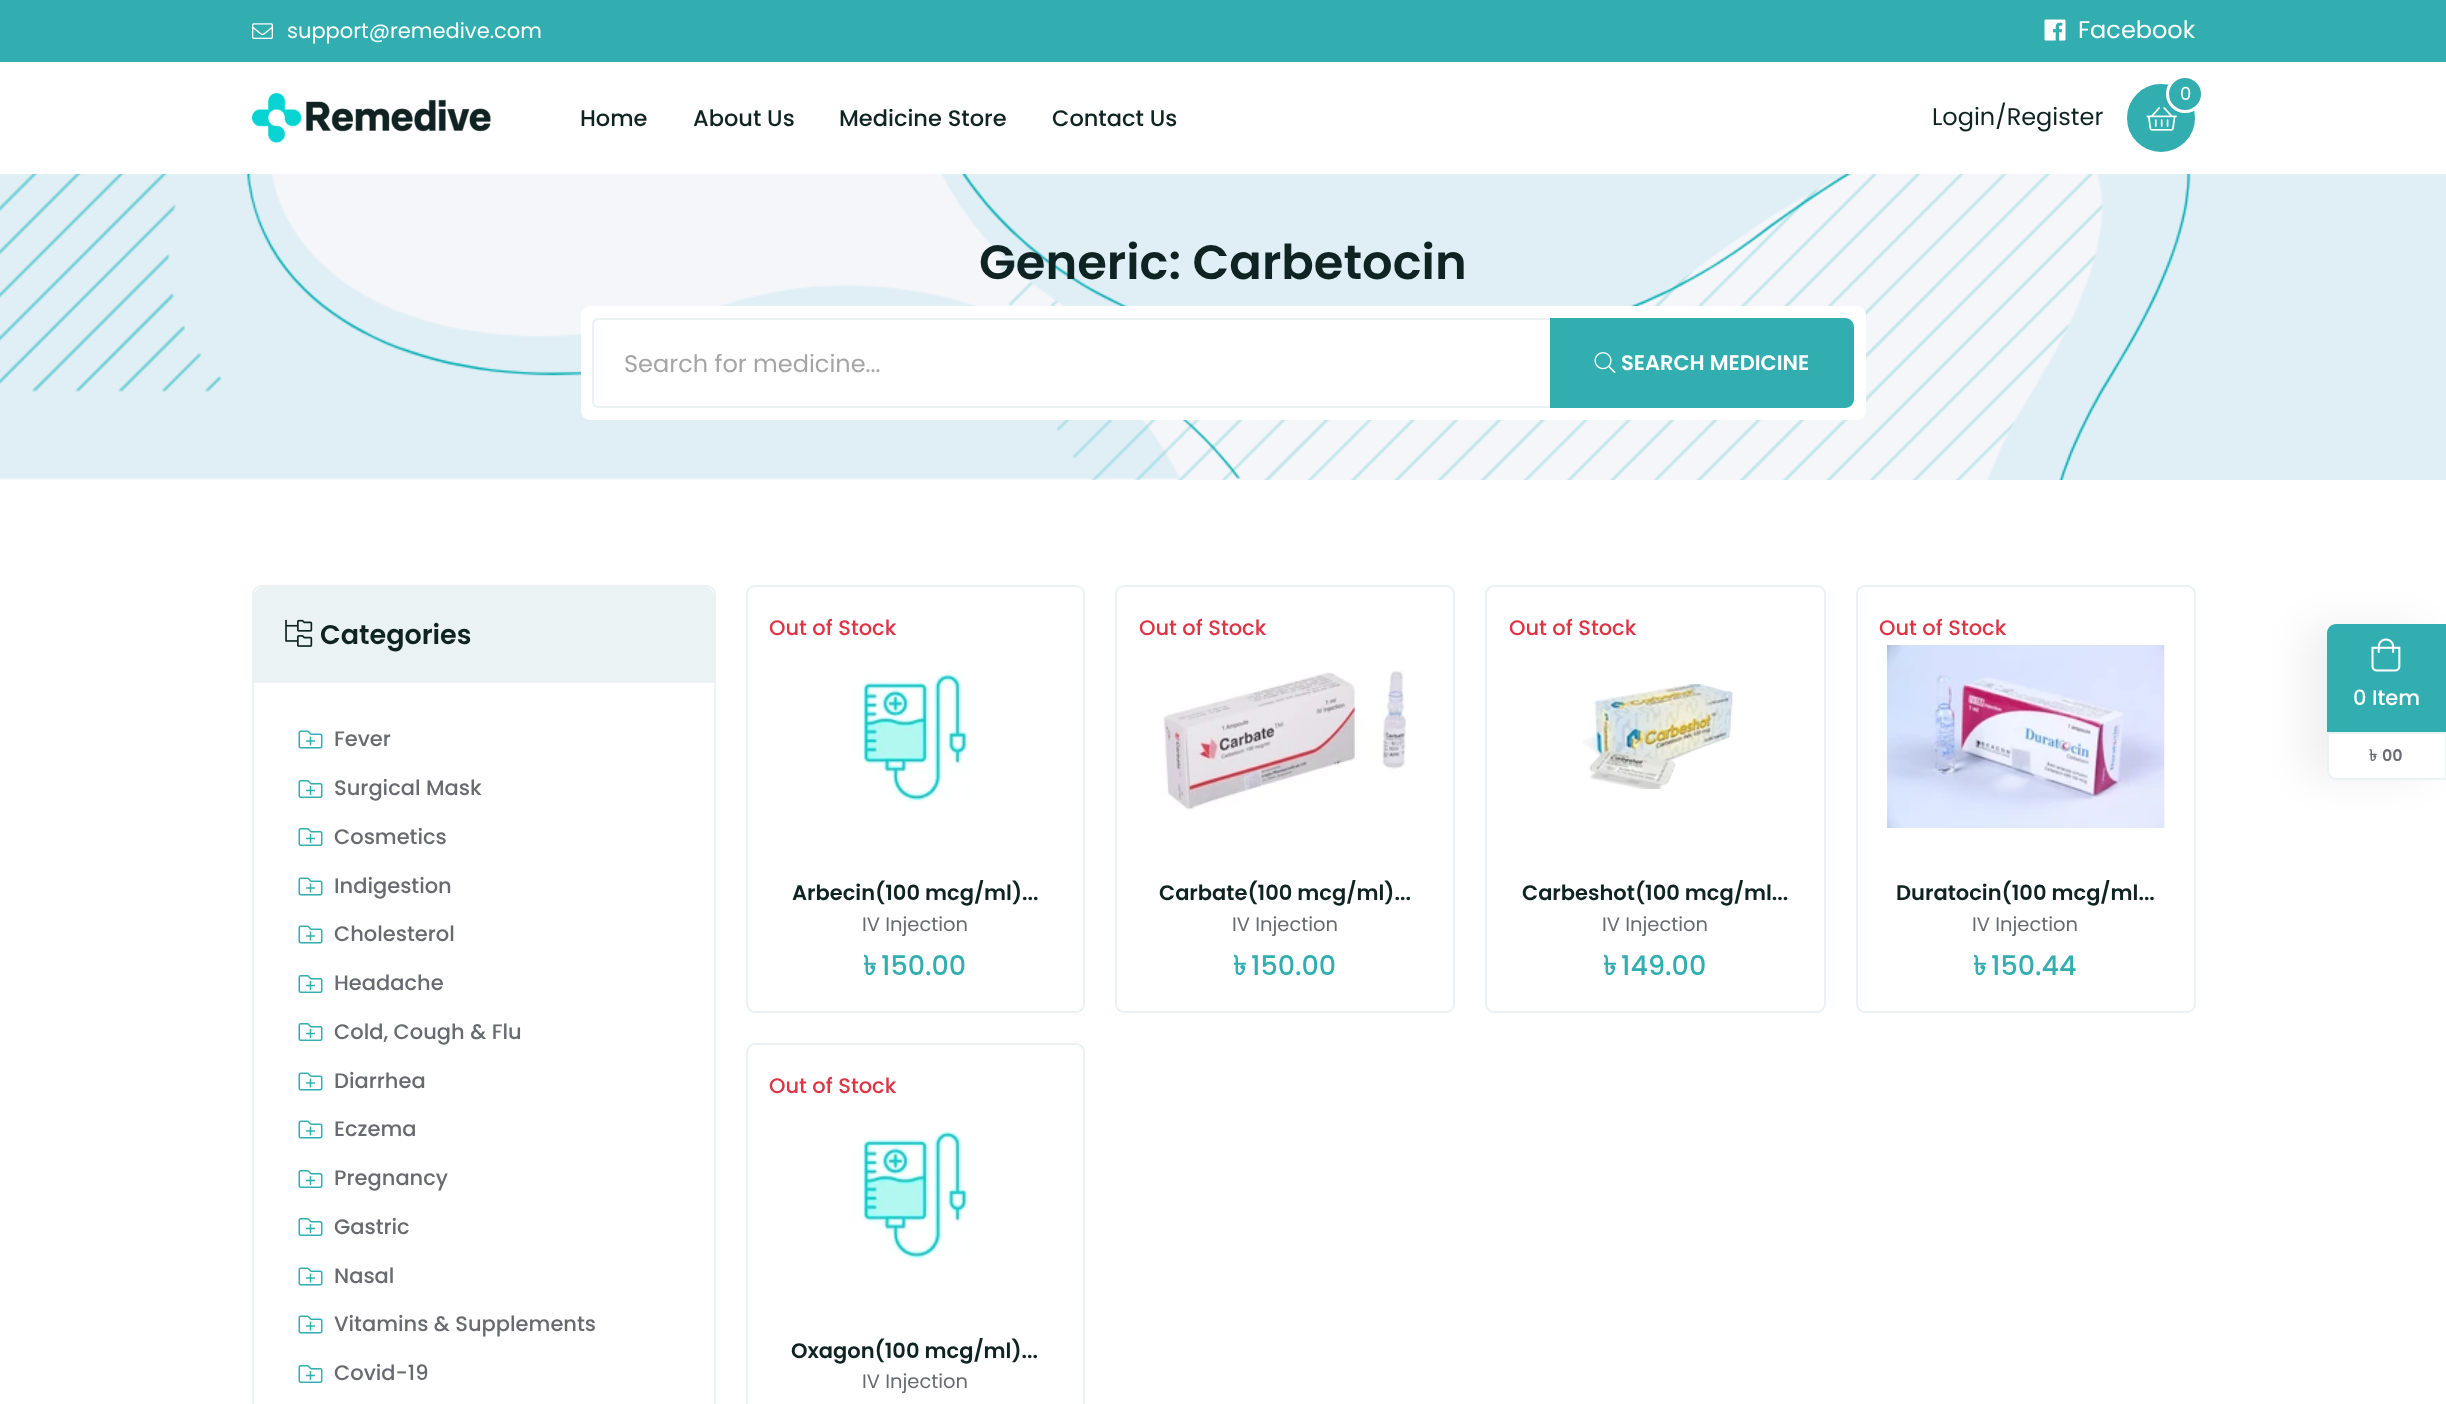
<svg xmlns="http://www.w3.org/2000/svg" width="2446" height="1404">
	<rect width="100%" height="100%" fill="#FFFFFF" />
	<rect x="0" y="0" width="2446" height="62" fill="#32AEB1" />
	<image x="252" y="23" width="21" height="16" href="assets/img1.png" />
	<text x="287" y="38" font-family="Poppins" font-size="21" fill="#FFFFFF">support@remedive.com</text>
	<image x="2044" y="19" width="22" height="22" href="assets/img2.png" />
	<text x="2078" y="38" font-family="Poppins" font-size="24" fill="#FFFFFF">Facebook</text>
	<image x="251" y="92" width="240" height="51" href="assets/img3.png" />
	<g font-family="Poppins" font-size="22.5" font-weight="500" fill="#0F2422">
		<text x="580" y="126">Home</text>
		<text x="693" y="126">About Us</text>
		<text x="839" y="126">Medicine Store</text>
		<text x="1052" y="126">Contact Us</text>
	</g>
	<circle cx="2161" cy="118" r="33" fill="#32AEB1" stroke="#32AEB1" stroke-width="2" />
	<image x="2146" y="107" width="31" height="24" href="assets/img4.png" />
	<circle cx="2185" cy="94" r="17.5" fill="#32AEB1" stroke="#FFFFFF" stroke-width="3" />
	<text x="2180" y="100" font-family="Poppins" font-size="18" fill="#FFFFFF">0</text>
	<text x="1932" y="125" font-family="Poppins" font-size="24" fill="#0F2422">Login/Register</text>
	<rect x="0" y="174" width="2104" height="306" fill="#F5F6F9" />
	<image x="0" y="174" width="1241" height="305" href="assets/img5.png" />
	<image x="940" y="174" width="1506" height="306" href="assets/img6.png" />
	<text x="979" y="279" font-family="Poppins" font-size="48" font-weight="600" fill="#0F2422">Generic: Carbetocin</text>
	<rect x="581" y="306" width="1285" height="114" rx="9" fill="#FFFFFF" />
	<path d="M598 318H1551V408H598C595 408 592 405 592 402V324C592 321 595 318 598 318ZM598 320H1551V406H598C596 406 594 404 594 402V324C594 322 596 320 598 320Z" fill="#EBF2F3" fill-rule="evenodd" />
	<text x="624" y="372" font-family="Poppins" font-size="24" fill="#A5A5A5">Search for medicine...</text>
	<path d="M1550 318H1845C1850 318 1854 322 1854 327V399C1854 404 1850 408 1845 408H1550Z" fill="#32AEB1" />
	<image x="1594" y="352" width="22" height="22" href="assets/img7.png" />
	<text x="1621" y="370" font-family="Poppins" font-size="21" font-weight="600" fill="#FFFFFF">SEARCH MEDICINE</text>
	<rect x="253" y="586" width="462" height="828" rx="8" fill="none" stroke="#EBF2F3" stroke-width="2" />
	<path d="M263 587H705C710 587 714 591 714 596V683H254V596C254 591 258 587 263 587Z" fill="#EBF2F3" />
	<image x="285" y="619" width="28" height="28" href="assets/img8.png" />
	<text x="320" y="644" font-family="Poppins" font-size="27" font-weight="600" fill="#0F2422">Categories</text>
	<image x="298" y="730" width="25" height="19" href="assets/img9.png" />
	<text x="334" y="746" font-family="Poppins" font-size="21" font-weight="500" fill="#686A6F">Fever</text>
	<image x="298" y="780" width="25" height="18" href="assets/img10.png" />
	<text x="334" y="795" font-family="Poppins" font-size="21" font-weight="500" fill="#686A6F">Surgical Mask</text>
	<image x="298" y="828" width="25" height="18" href="assets/img10.png" />
	<text x="334" y="844" font-family="Poppins" font-size="21" font-weight="500" fill="#686A6F">Cosmetics</text>
	<image x="298" y="877" width="25" height="19" href="assets/img9.png" />
	<text x="334" y="893" font-family="Poppins" font-size="21" font-weight="500" fill="#686A6F">Indigestion</text>
	<image x="298" y="925" width="25" height="19" href="assets/img9.png" />
	<text x="334" y="941" font-family="Poppins" font-size="21" font-weight="500" fill="#686A6F">Cholesterol</text>
	<image x="298" y="975" width="25" height="18" href="assets/img10.png" />
	<text x="334" y="990" font-family="Poppins" font-size="21" font-weight="500" fill="#686A6F">Headache</text>
	<image x="298" y="1023" width="25" height="18" href="assets/img10.png" />
	<text x="334" y="1039" font-family="Poppins" font-size="21" font-weight="500" fill="#686A6F">Cold, Cough &amp; Flu</text>
	<image x="298" y="1072" width="25" height="19" href="assets/img9.png" />
	<text x="334" y="1088" font-family="Poppins" font-size="21" font-weight="500" fill="#686A6F">Diarrhea</text>
	<image x="298" y="1120" width="25" height="19" href="assets/img9.png" />
	<text x="334" y="1136" font-family="Poppins" font-size="21" font-weight="500" fill="#686A6F">Eczema</text>
	<image x="298" y="1170" width="25" height="18" href="assets/img10.png" />
	<text x="334" y="1185" font-family="Poppins" font-size="21" font-weight="500" fill="#686A6F">Pregnancy</text>
	<image x="298" y="1218" width="25" height="18" href="assets/img10.png" />
	<text x="334" y="1234" font-family="Poppins" font-size="21" font-weight="500" fill="#686A6F">Gastric</text>
	<image x="298" y="1267" width="25" height="19" href="assets/img9.png" />
	<text x="334" y="1283" font-family="Poppins" font-size="21" font-weight="500" fill="#686A6F">Nasal</text>
	<image x="298" y="1315" width="25" height="19" href="assets/img9.png" />
	<text x="334" y="1331" font-family="Poppins" font-size="21" font-weight="500" fill="#686A6F">Vitamins &amp; Supplements</text>
	<image x="298" y="1365" width="25" height="18" href="assets/img10.png" />
	<text x="334" y="1380" font-family="Poppins" font-size="21" font-weight="500" fill="#686A6F">Covid-19</text>
	<rect x="747" y="586" width="337" height="426" rx="8" fill="none" stroke="#EBF2F3" stroke-width="2" />
	<text x="769" y="635" font-family="Poppins" font-size="21" font-weight="500" fill="#DC3545">Out of Stock</text>
	<image x="863" y="670" width="110" height="132" href="assets/img11.png" />
	<text x="792" y="900" font-family="Poppins" font-size="21" font-weight="600" fill="#0F2422">Arbecin(100 mcg/ml)...</text>
	<text x="862" y="931" font-family="Poppins" font-size="19.5" fill="#686A6F">IV Injection</text>
	<text x="863" y="975" font-family="Lohit Bengali" font-size="27" font-weight="700" fill="#32AEB1">৳</text>
	<text x="881" y="975" font-family="Poppins" font-size="27" font-weight="500" fill="#32AEB1">150.00</text>
	<rect x="1116" y="586" width="338" height="426" rx="8" fill="none" stroke="#EBF2F3" stroke-width="2" />
	<text x="1139" y="635" font-family="Poppins" font-size="21" font-weight="500" fill="#DC3545">Out of Stock</text>
	<image x="1163" y="671" width="247" height="139" href="assets/img12.png" />
	<text x="1159" y="900" font-family="Poppins" font-size="21" font-weight="600" fill="#0F2422">Carbate(100 mcg/ml)...</text>
	<text x="1232" y="931" font-family="Poppins" font-size="19.5" fill="#686A6F">IV Injection</text>
	<text x="1233" y="975" font-family="Lohit Bengali" font-size="27" font-weight="700" fill="#32AEB1">৳</text>
	<text x="1251" y="975" font-family="Poppins" font-size="27" font-weight="500" fill="#32AEB1">150.00</text>
	<rect x="1486" y="586" width="339" height="426" rx="8" fill="none" stroke="#EBF2F3" stroke-width="2" />
	<text x="1509" y="635" font-family="Poppins" font-size="21" font-weight="500" fill="#DC3545">Out of Stock</text>
	<image x="1582" y="684" width="151" height="105" href="assets/img13.png" />
	<text x="1522" y="900" font-family="Poppins" font-size="21" font-weight="600" fill="#0F2422">Carbeshot(100 mcg/ml...</text>
	<text x="1602" y="931" font-family="Poppins" font-size="19.5" fill="#686A6F">IV Injection</text>
	<text x="1603" y="975" font-family="Lohit Bengali" font-size="27" font-weight="700" fill="#32AEB1">৳</text>
	<text x="1621" y="975" font-family="Poppins" font-size="27" font-weight="500" fill="#32AEB1">149.00</text>
	<rect x="1857" y="586" width="338" height="426" rx="8" fill="none" stroke="#EBF2F3" stroke-width="2" />
	<text x="1879" y="635" font-family="Poppins" font-size="21" font-weight="500" fill="#DC3545">Out of Stock</text>
	<image x="1887" y="645" width="278" height="183" href="assets/img14.png" />
	<text x="1896" y="900" font-family="Poppins" font-size="21" font-weight="600" fill="#0F2422">Duratocin(100 mcg/ml...</text>
	<text x="1972" y="931" font-family="Poppins" font-size="19.5" fill="#686A6F">IV Injection</text>
	<text x="1973" y="975" font-family="Lohit Bengali" font-size="27" font-weight="700" fill="#32AEB1">৳</text>
	<text x="1991" y="975" font-family="Poppins" font-size="27" font-weight="500" fill="#32AEB1">150.44</text>
	<rect x="747" y="1044" width="337" height="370" rx="8" fill="none" stroke="#EBF2F3" stroke-width="2" />
	<text x="769" y="1093" font-family="Poppins" font-size="21" font-weight="500" fill="#DC3545">Out of Stock</text>
	<image x="863" y="1127" width="110" height="133" href="assets/img15.png" />
	<text x="791" y="1358" font-family="Poppins" font-size="21" font-weight="600" fill="#0F2422">Oxagon(100 mcg/ml)...</text>
	<text x="862" y="1388" font-family="Poppins" font-size="19.5" fill="#686A6F">IV Injection</text>
	<rect x="2304" y="624" width="120" height="156" rx="9" fill="#000000" fill-opacity="0.06" filter="blur(19px)" />
	<path d="M2336 624H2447V780H2336C2331 780 2327 776 2327 771V633C2327 628 2331 624 2336 624Z" fill="#FFFFFF" />
	<path d="M2336 624H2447V732H2327V633C2327 628 2331 624 2336 624Z" fill="#32AEB1" />
	<image x="2371" y="638" width="30" height="34" href="assets/img16.png" />
	<text x="2353" y="705" font-family="Poppins" font-size="21" font-weight="500" fill="#FFFFFF">0 Item</text>
	<path d="M2328 733H2446V779H2336C2331.5 779 2328 775.5 2328 771Z" fill="none" stroke="#EBF2F3" stroke-width="2" />
	<text x="2369" y="761" font-family="Lohit Bengali" font-size="16" font-weight="700" fill="#686A6F">৳</text>
	<text x="2382" y="761" font-family="Poppins" font-size="16" font-weight="600" fill="#686A6F">00</text>
</svg>
